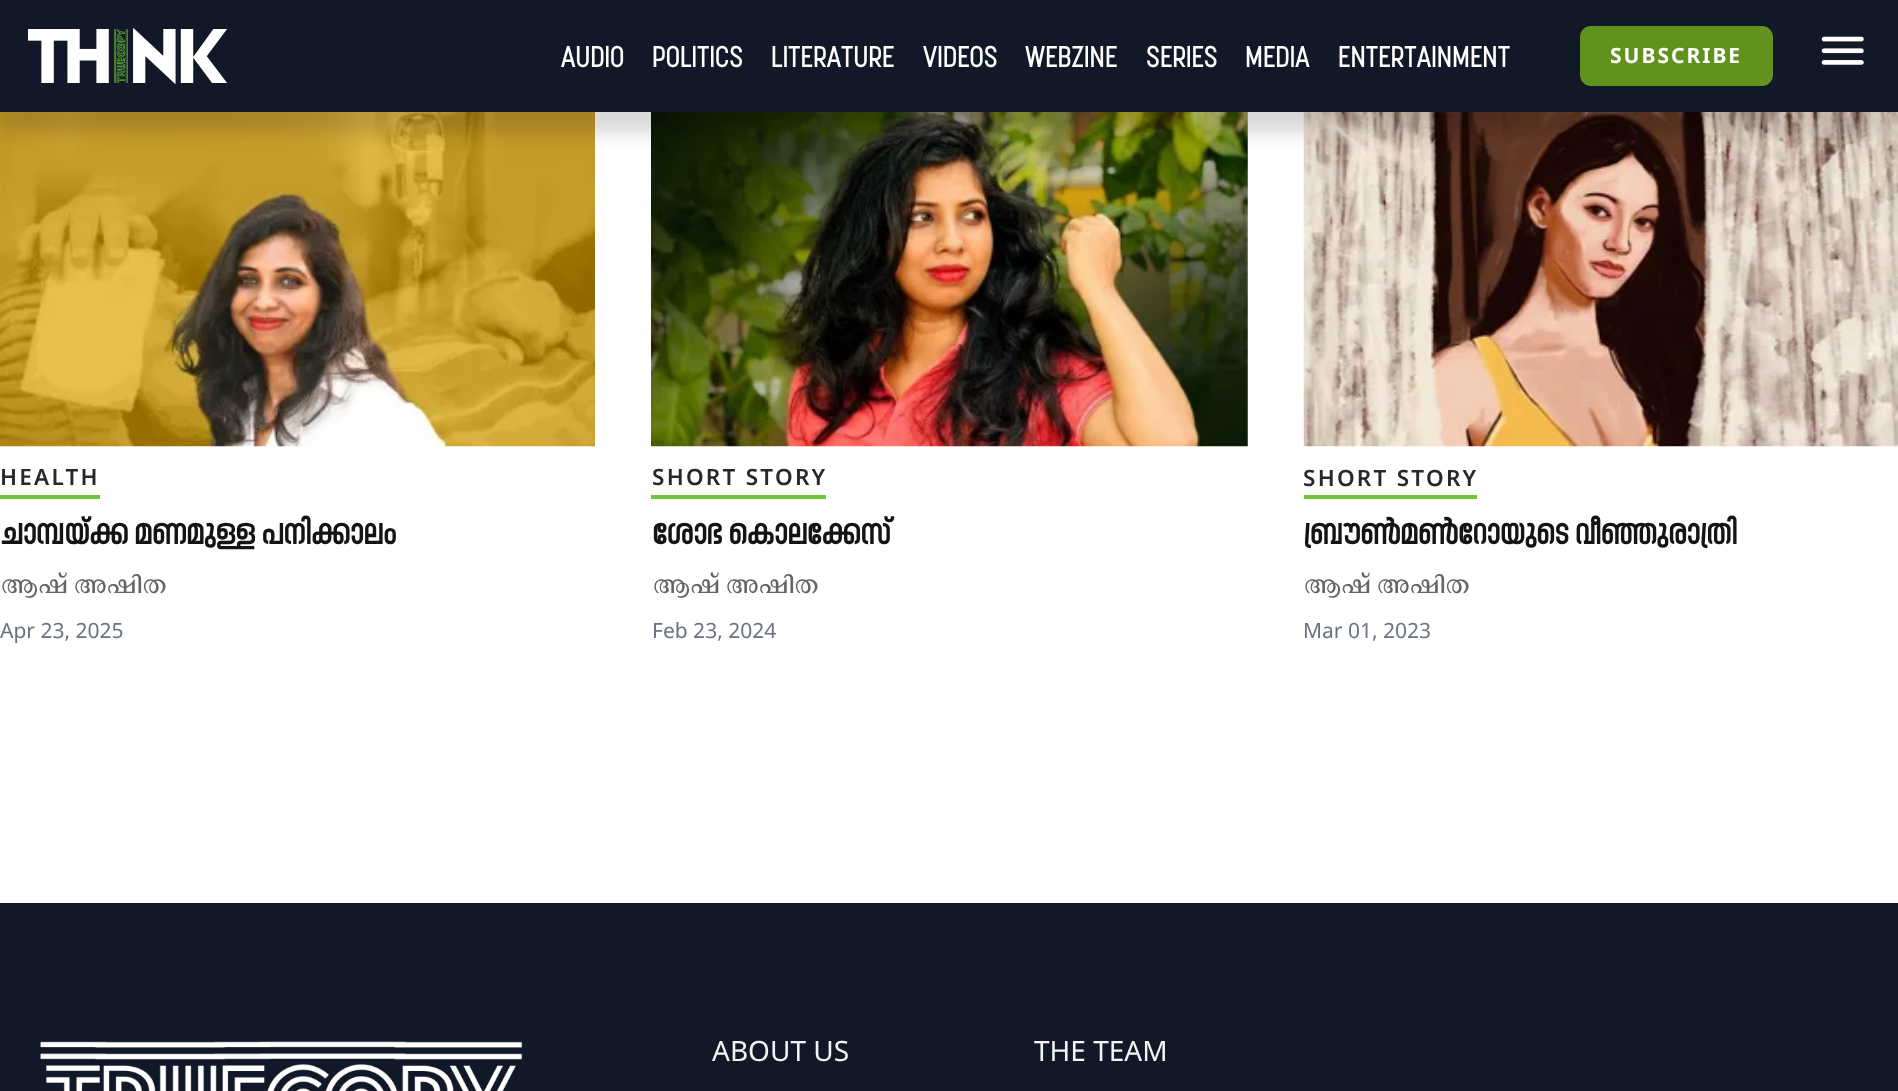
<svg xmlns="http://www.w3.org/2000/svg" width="1898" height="1091">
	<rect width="100%" height="100%" fill="#FFFFFF" />
	<image x="0" y="112" width="595" height="335" href="assets/img3.png" />
	<image x="651" y="112" width="597" height="335" href="assets/img4.png" />
	<image x="1303" y="112" width="595" height="335" href="assets/img5.png" />
	<rect x="0" y="21" width="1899" height="112" fill="#000000" fill-opacity="0.15" filter="blur(9px)" />
	<rect x="0" y="0" width="1898" height="112" fill="#111827" />
	<image x="28" y="28" width="199" height="56" href="assets/img1.png" />
	<g font-family="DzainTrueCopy" font-size="42" fill="#FFFFFF">
		<text x="561" y="67">AUDIO</text>
		<text x="652" y="67">POLITICS</text>
		<text x="771" y="67">LITERATURE</text>
		<text x="923" y="67">VIDEOS</text>
		<text x="1025" y="67">WEBZINE</text>
		<text x="1146" y="67">SERIES</text>
		<text x="1245" y="67">MEDIA</text>
		<text x="1338" y="67">ENTERTAINMENT</text>
	</g>
	<rect x="1580" y="26" width="193" height="60" rx="11" fill="#62921E" />
	<text x="1610" y="63" font-family="Noto Sans" font-size="21" font-weight="700" letter-spacing="2" fill="#FFFFFF">SUBSCRIBE</text>
	<image x="1821" y="36" width="43" height="29" href="assets/img2.png" />
	<rect x="0" y="495" width="100" height="4" fill="#6FC639" />
	<text x="0" y="485" font-family="Noto Sans" font-size="22.5" font-weight="600" letter-spacing="2.25" fill="#282828">HEALTH</text>
	<text x="0" y="544" font-family="DzainTrueCopy" font-size="42" font-weight="700" fill="#141414">ചാമ്പയ്ക്ക മണമുള്ള പനിക്കാലം</text>
	<text x="0" y="593" font-family="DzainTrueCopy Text" font-size="30.75" fill="#646464">ആഷ് അഷിത</text>
	<text x="0" y="638" font-family="Noto Sans" font-size="21" fill="#6B7280">Apr 23, 2025</text>
	<rect x="651" y="495" width="175" height="4" fill="#6FC639" />
	<text x="652" y="485" font-family="Noto Sans" font-size="22.5" font-weight="600" letter-spacing="2.25" fill="#282828">SHORT STORY</text>
	<text x="652" y="544" font-family="DzainTrueCopy" font-size="42" font-weight="700" fill="#141414">ശോഭ കൊലക്കേസ്</text>
	<text x="652" y="593" font-family="DzainTrueCopy Text" font-size="30.75" fill="#646464">ആഷ് അഷിത</text>
	<text x="652" y="638" font-family="Noto Sans" font-size="21" fill="#6B7280">Feb 23, 2024</text>
	<rect x="1304" y="495" width="173" height="4" fill="#6FC639" />
	<text x="1303" y="486" font-family="Noto Sans" font-size="22.5" font-weight="600" letter-spacing="2.25" fill="#282828">SHORT STORY</text>
	<text x="1303" y="544" font-family="DzainTrueCopy" font-size="42" font-weight="700" fill="#141414">ബ്രൗൺമൺറോയുടെ വീഞ്ഞുരാത്രി</text>
	<text x="1303" y="593" font-family="DzainTrueCopy Text" font-size="30.75" fill="#646464">ആഷ് അഷിത</text>
	<text x="1303" y="638" font-family="Noto Sans" font-size="21" fill="#6B7280">Mar 01, 2023</text>
	<rect x="0" y="903" width="1898" height="188" fill="#111827" />
	<image x="40" y="1041" width="483" height="50" href="assets/img6.png" />
	<g font-family="Noto Sans" font-size="28" fill="#F3F4F6">
		<text x="712" y="1061">ABOUT US</text>
		<text x="1034" y="1061">THE TEAM</text>
	</g>
</svg>
